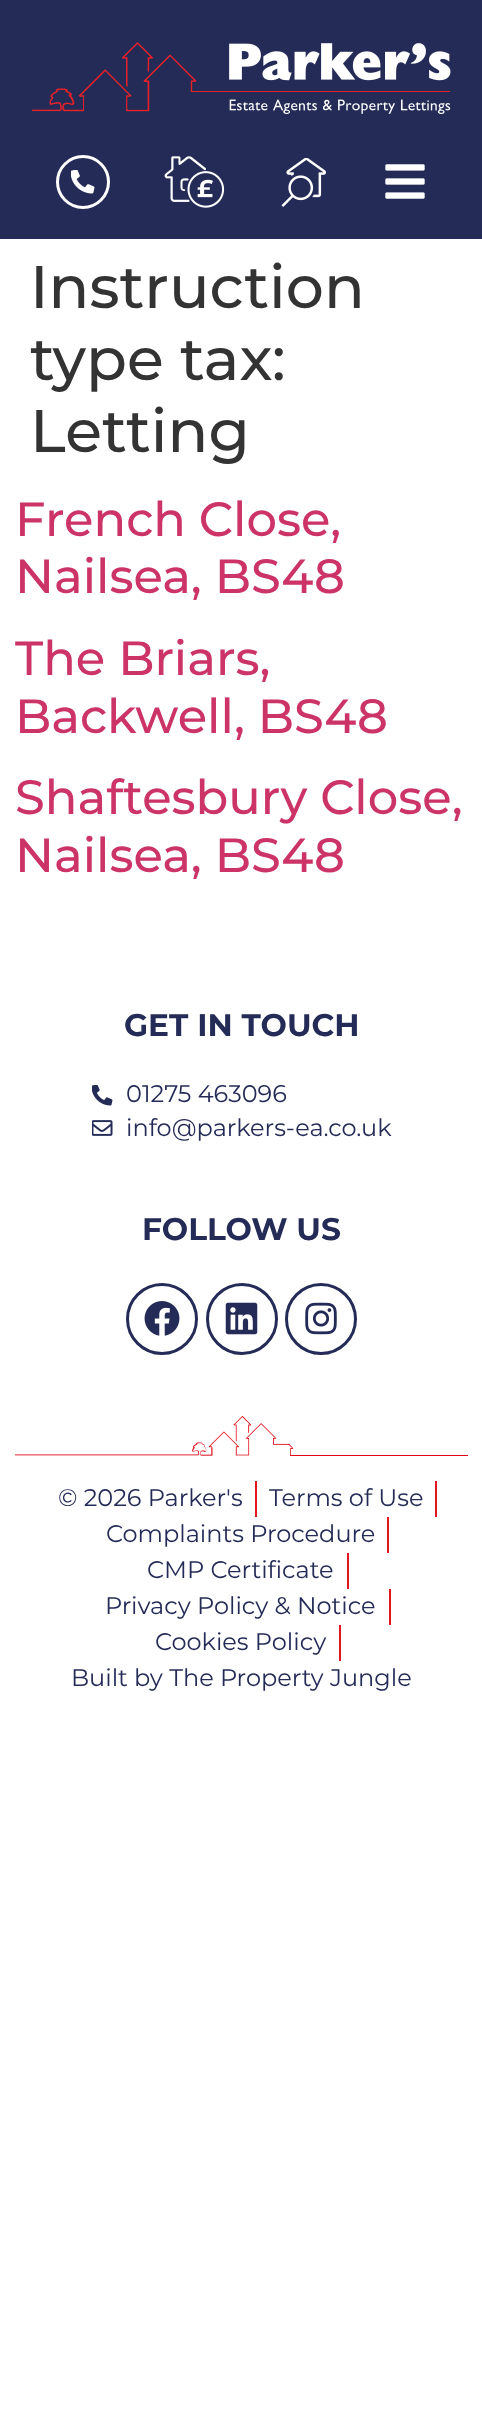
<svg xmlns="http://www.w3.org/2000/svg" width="482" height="2414">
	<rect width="100%" height="100%" fill="#FFFFFF" />
	<rect x="0" y="0" width="482" height="239" fill="#242B57" />
	<image x="32" y="42" width="419" height="72" href="assets/img1.png" />
	<circle cx="83" cy="182" r="25.5" fill="none" stroke="#FFFFFF" stroke-width="3" />
	<image x="71" y="170" width="24" height="24" href="assets/img2.png" />
	<image x="164" y="156" width="61" height="52" href="assets/img3.png" />
	<image x="281" y="158" width="45" height="49" href="assets/img4.png" />
	<image x="385" y="164" width="40" height="35" href="assets/img5.png" />
	<g font-family="Montserrat" font-size="60" font-weight="500" fill="#333333">
		<text x="30" y="308">Instruction</text>
		<text x="30" y="380">type tax:</text>
		<text x="30" y="452">Letting</text>
	</g>
	<g font-family="Montserrat" font-size="48" font-weight="500" fill="#CC3366">
		<text x="15" y="536">French Close,</text>
		<text x="15" y="593">Nailsea, BS48</text>
		<text x="15" y="675">The Briars,</text>
		<text x="15" y="733">Backwell, BS48</text>
		<text x="15" y="814">Shaftesbury Close,</text>
		<text x="15" y="872">Nailsea, BS48</text>
	</g>
	<text x="124" y="1036" font-family="Montserrat" font-size="31.25" font-weight="700" fill="#242B57">GET IN TOUCH</text>
	<image x="92" y="1085" width="21" height="21" href="assets/img6.png" />
	<text x="126" y="1102" font-family="Montserrat" font-size="24" fill="#242B57">01275 463096</text>
	<image x="92" y="1120" width="21" height="16" href="assets/img7.png" />
	<text x="126" y="1136" font-family="Montserrat" font-size="24" fill="#242B57">info@parkers-ea.co.uk</text>
	<text x="142" y="1240" font-family="Montserrat" font-size="31.25" font-weight="700" fill="#242B57">FOLLOW US</text>
	<circle cx="162" cy="1319" r="34.5" fill="none" stroke="#242B57" stroke-width="3" />
	<image x="144" y="1301" width="36" height="35" href="assets/img8.png" />
	<circle cx="242" cy="1319" r="34.5" fill="none" stroke="#242B57" stroke-width="3" />
	<image x="225" y="1302" width="33" height="33" href="assets/img9.png" />
	<circle cx="321" cy="1319" r="34.5" fill="none" stroke="#242B57" stroke-width="3" />
	<image x="305" y="1302" width="32" height="33" href="assets/img10.png" />
	<image x="15" y="1415" width="453" height="41" href="assets/img11.png" />
	<text x="58" y="1506" font-family="Montserrat" font-size="24" fill="#242B57">© 2026 Parker's</text>
	<rect x="255" y="1481" width="2" height="36" fill="#E2161F" />
	<text x="269" y="1506" font-family="Montserrat" font-size="24" fill="#242B57">Terms of Use</text>
	<rect x="435" y="1481" width="2" height="36" fill="#E2161F" />
	<text x="106" y="1542" font-family="Montserrat" font-size="24" fill="#242B57">Complaints Procedure</text>
	<rect x="387" y="1517" width="2" height="36" fill="#E2161F" />
	<text x="147" y="1578" font-family="Montserrat" font-size="24" fill="#242B57">CMP Certificate</text>
	<rect x="347" y="1553" width="2" height="36" fill="#E2161F" />
	<text x="105" y="1614" font-family="Montserrat" font-size="24" fill="#242B57">Privacy Policy &amp; Notice</text>
	<rect x="389" y="1589" width="2" height="36" fill="#E2161F" />
	<text x="155" y="1650" font-family="Montserrat" font-size="24" fill="#242B57">Cookies Policy</text>
	<rect x="339" y="1625" width="2" height="36" fill="#E2161F" />
	<text x="71" y="1686" font-family="Montserrat" font-size="24" fill="#242B57">Built by The Property Jungle</text>
</svg>
